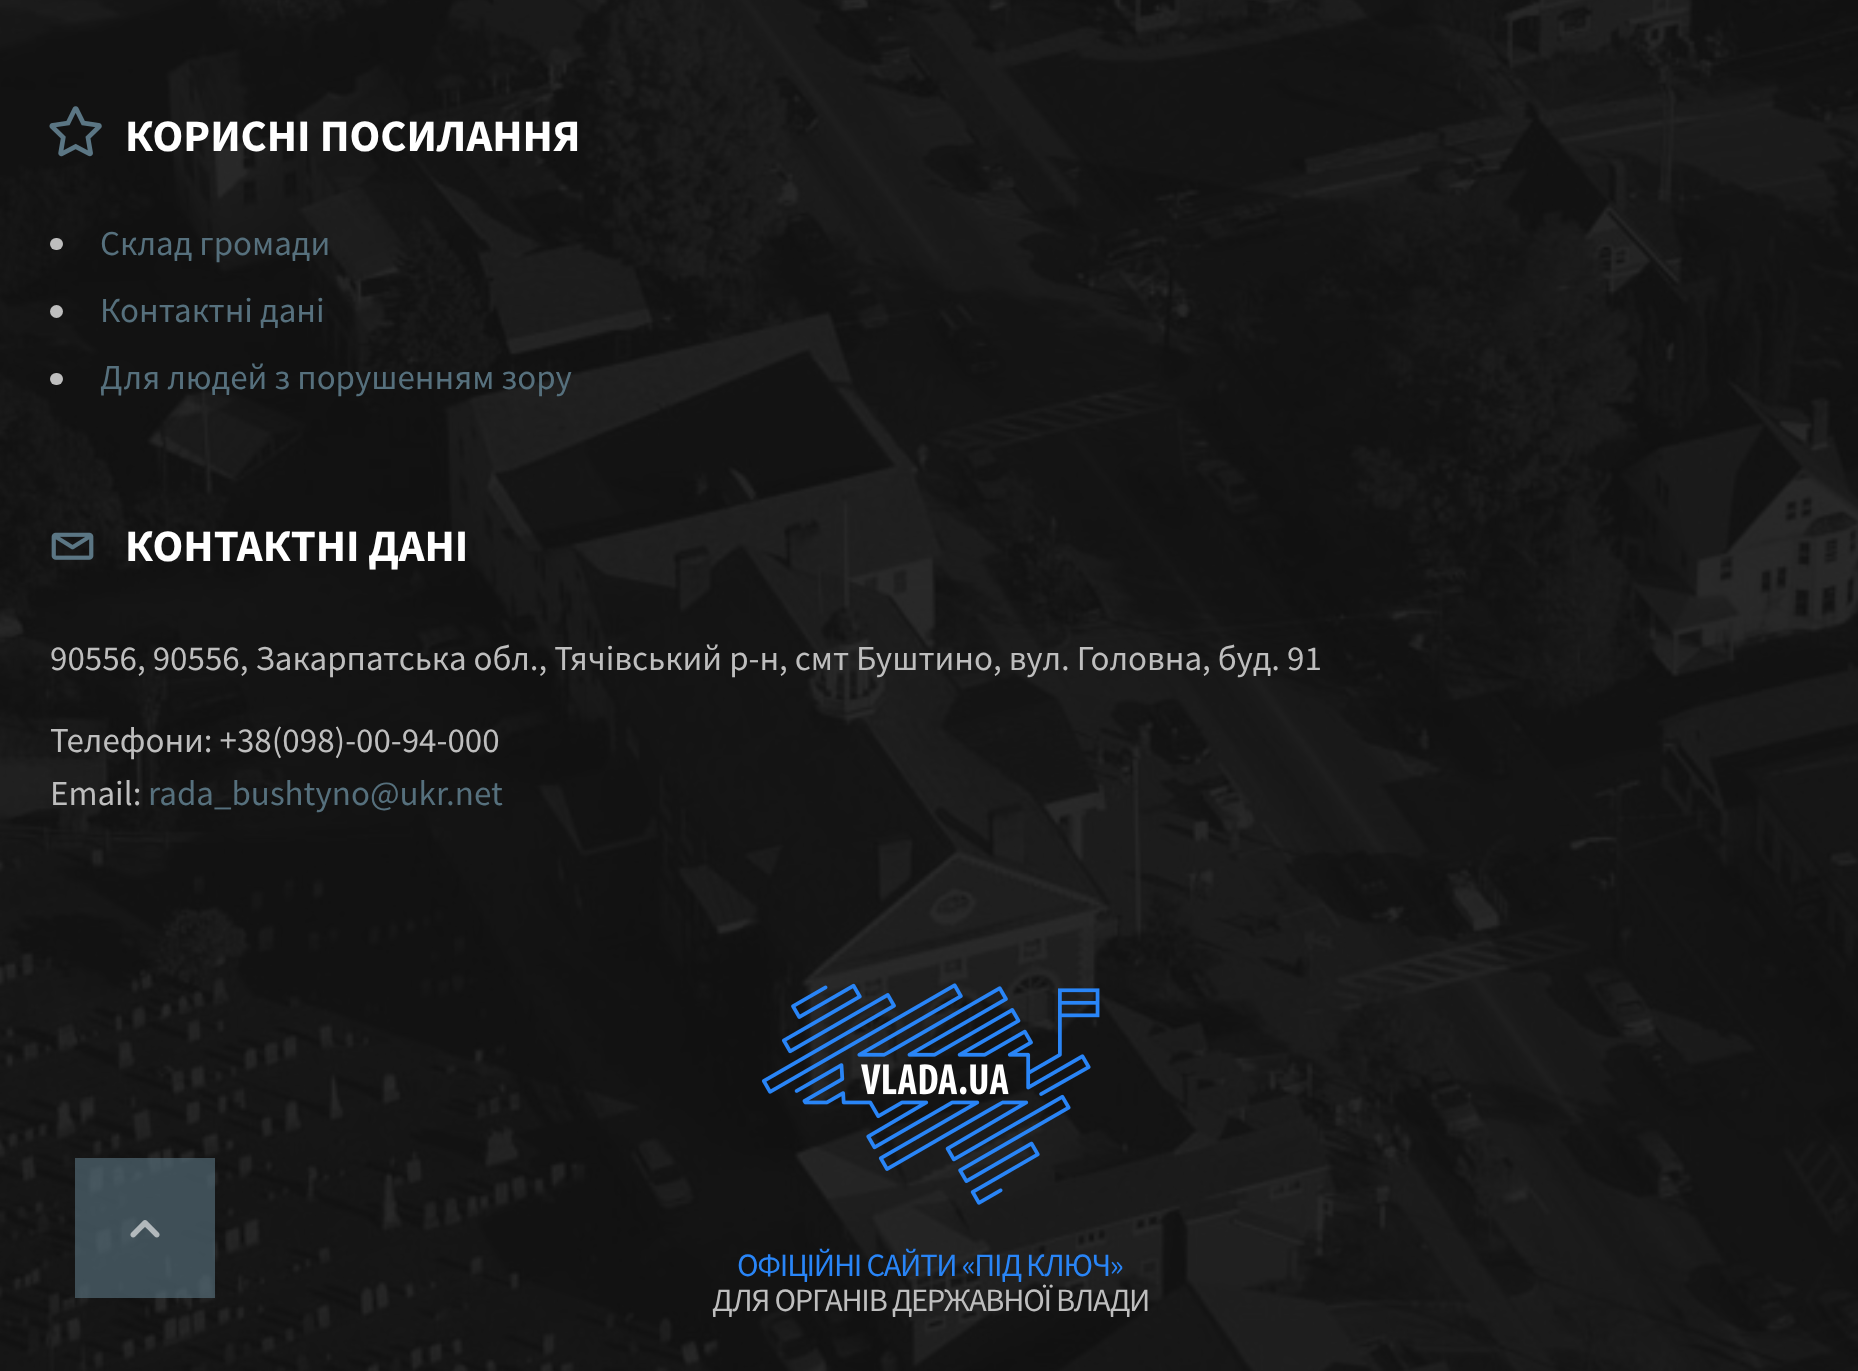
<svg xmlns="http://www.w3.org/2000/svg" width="1858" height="1371">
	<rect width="100%" height="100%" fill="#FFFFFF" />
	<image x="0" y="0" width="1858" height="1371" href="assets/img1.png" />
	<image x="49" y="106" width="53" height="51" href="assets/img2.png" />
	<text x="125" y="151" font-family="Source Sans Pro" font-size="45" font-weight="700" fill="#FFFFFF">КОРИСНІ ПОСИЛАННЯ</text>
	<rect x="50" y="238" width="13" height="12" rx="6" fill="#BEBEBE" />
	<text x="100" y="255" font-family="Source Sans Pro" font-size="35" fill="#56707D">Склад громади</text>
	<circle cx="56.5" cy="311.5" r="6.5" fill="#BEBEBE" />
	<text x="100" y="322" font-family="Source Sans Pro" font-size="35" fill="#56707D">Контактні дані</text>
	<rect x="50" y="373" width="13" height="12" rx="6" fill="#BEBEBE" />
	<text x="100" y="389" font-family="Source Sans Pro" font-size="35" fill="#56707D">Для людей з порушенням зору</text>
	<image x="51" y="532" width="43" height="28" href="assets/img3.png" />
	<text x="125" y="561" font-family="Source Sans Pro" font-size="45" font-weight="700" fill="#FFFFFF">КОНТАКТНІ ДАНІ</text>
	<g font-family="Source Sans Pro" font-size="35" fill="#BEBEBE">
		<text x="50" y="670">90556, 90556, Закарпатська обл., Тячівський р-н, смт Буштино, вул. Головна, буд. 91</text>
		<text x="50" y="752">Телефони: +38(098)-00-94-000</text>
		<text x="50" y="805">Email:</text>
	</g>
	<text x="148" y="805" font-family="Source Sans Pro" font-size="35" fill="#56707D">rada_bushtyno@ukr.net</text>
	<image x="761" y="983" width="339" height="222" href="assets/img4.png" />
	<text x="737" y="1276" font-family="Source Sans Pro" font-size="32.5" letter-spacing="-1.25" fill="#2985F7">ОФІЦІЙНІ САЙТИ «ПІД КЛЮЧ»</text>
	<text x="712" y="1311" font-family="Source Sans Pro" font-size="32.5" letter-spacing="-1.25" fill="#BEBEBE">ДЛЯ ОРГАНІВ ДЕРЖАВНОЇ ВЛАДИ</text>
	<rect x="75" y="1158" width="140" height="140" fill="#5B7684" fill-opacity="0.6" />
	<image x="130" y="1220" width="30" height="18" href="assets/img5.png" />
</svg>
